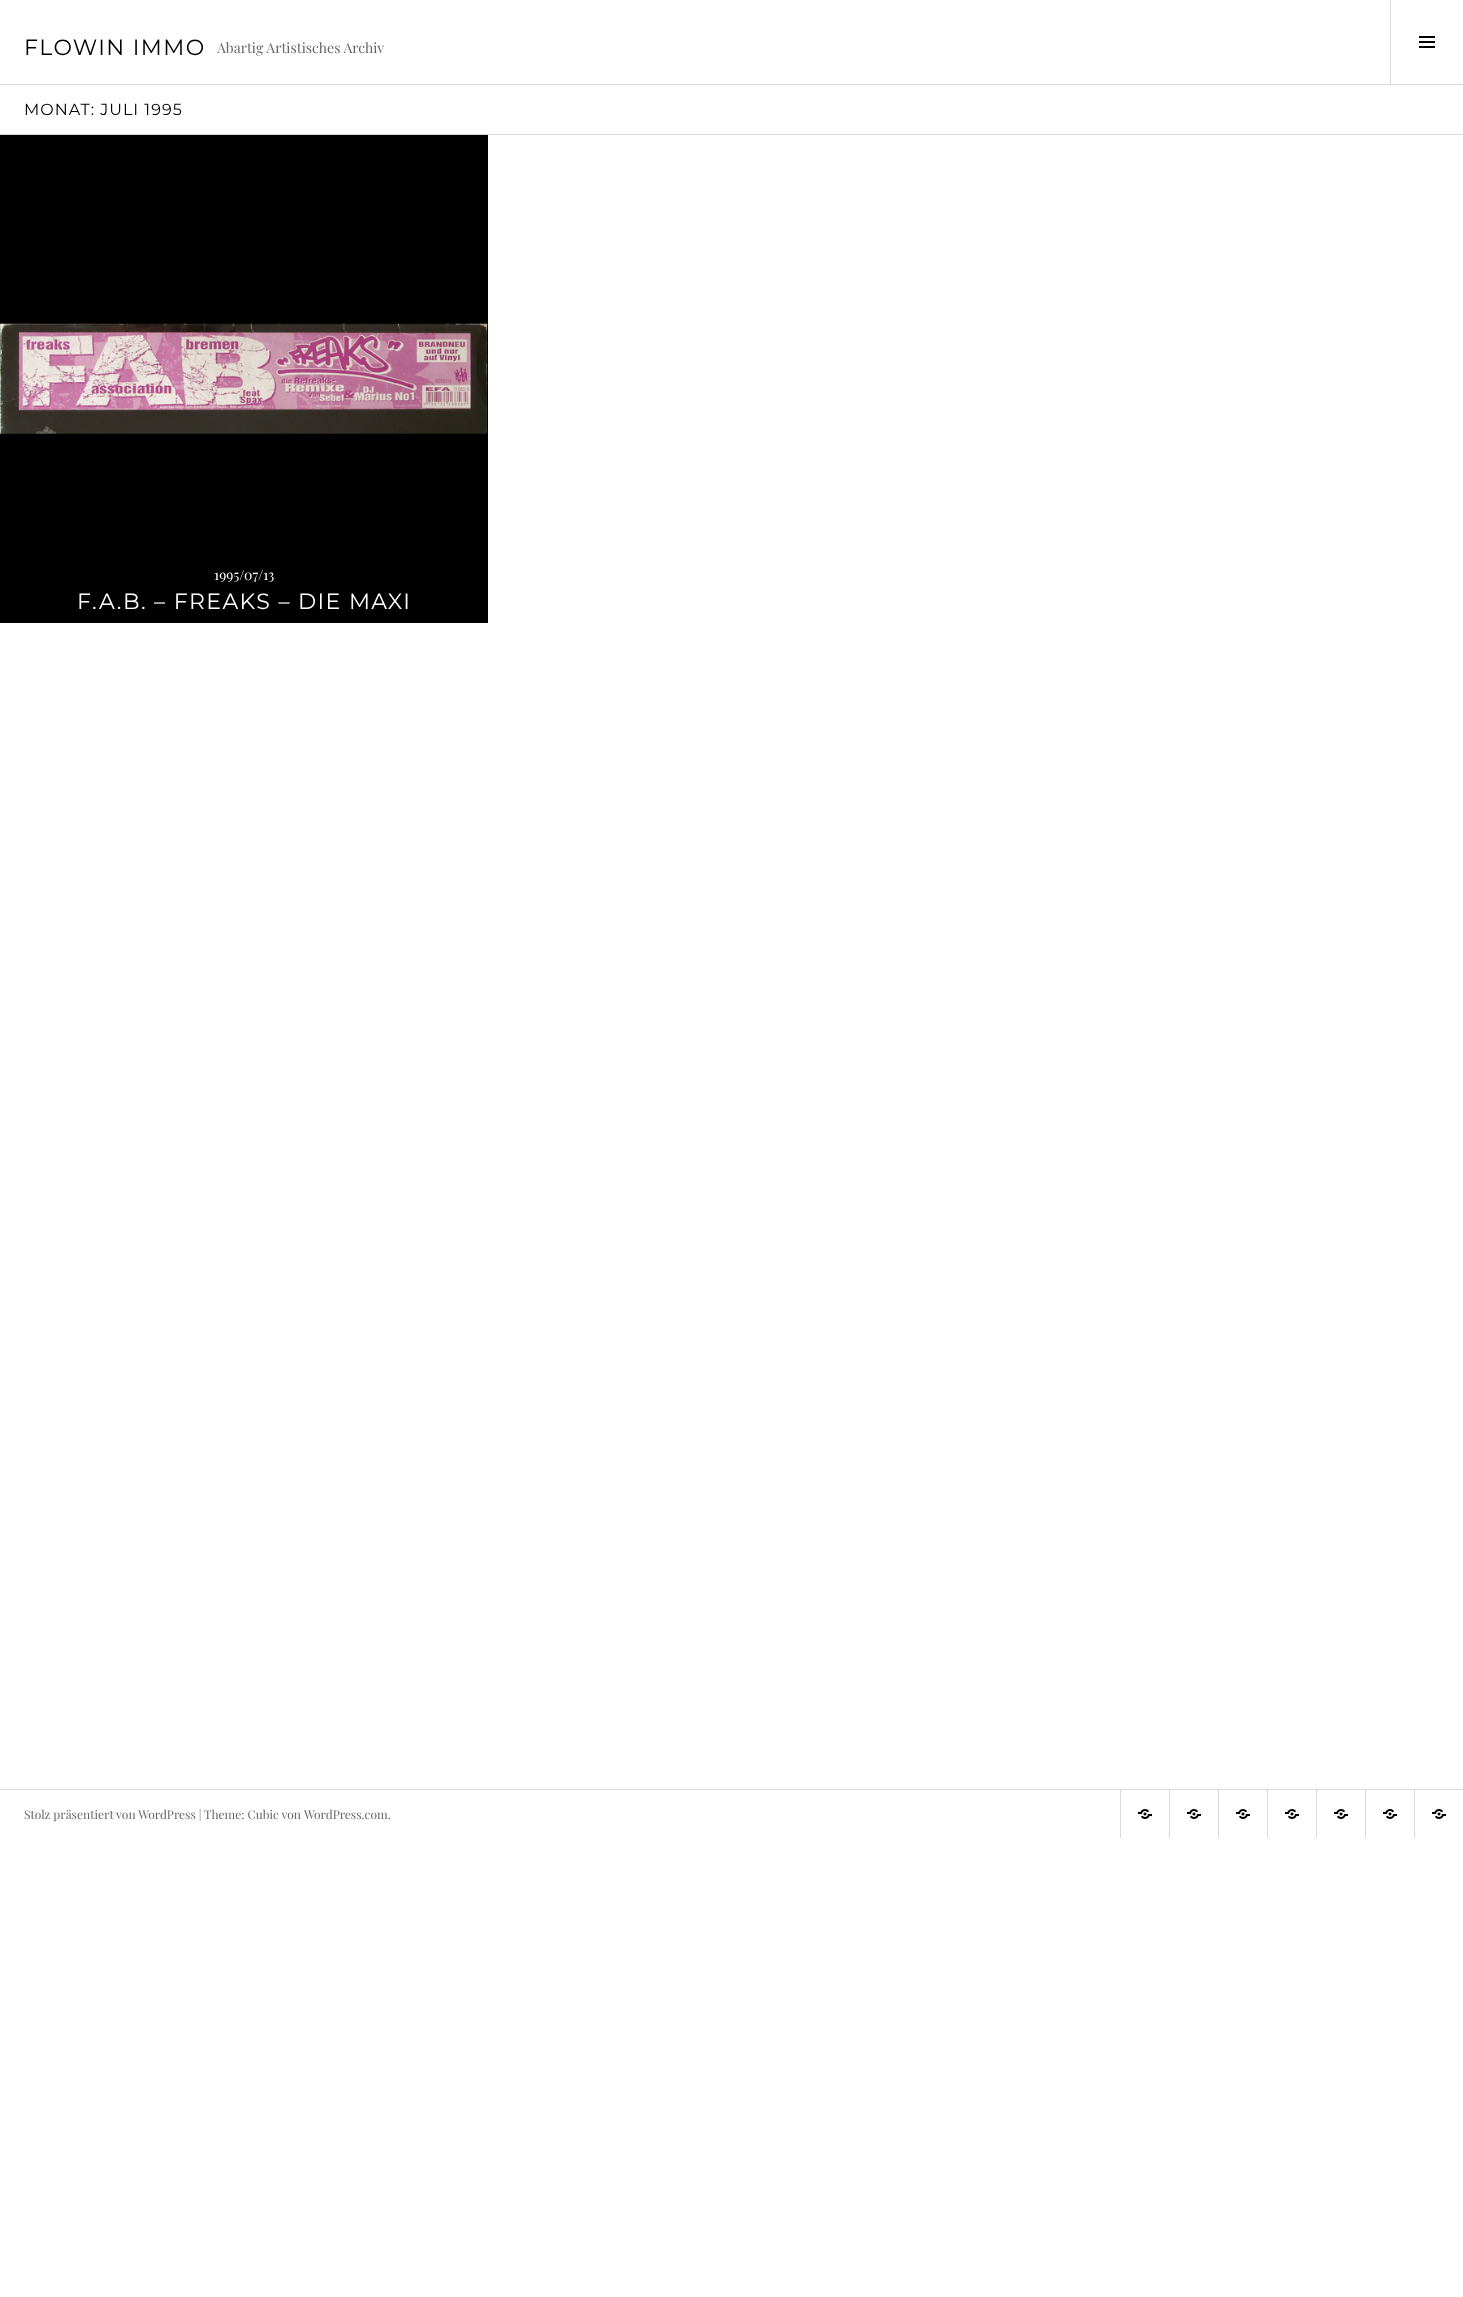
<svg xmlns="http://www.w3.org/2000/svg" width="1463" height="2297">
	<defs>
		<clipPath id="clip1"><rect x="0" y="1790" width="1463" height="48" /></clipPath>
	</defs>
	<rect width="100%" height="100%" fill="#FFFFFF" />
	<rect x="0" y="84" width="1463" height="1" fill="#D9D9D9" />
	<text x="24" y="55" font-family="Montserrat" font-size="22" letter-spacing="1.4" fill="#000000">FLOWIN IMMO</text>
	<text x="217" y="53" font-family="Playfair Display" font-size="14" fill="#666666">Abartig Artistisches Archiv</text>
	<rect x="1390" y="0" width="1" height="84" fill="#D9D9D9" />
	<image x="1419" y="36" width="16" height="12" href="assets/img1.png" />
	<rect x="0" y="134" width="1463" height="1" fill="#D9D9D9" />
	<text x="24" y="115" font-family="Montserrat" font-size="16" letter-spacing="1" fill="#000000">MONAT: JULI 1995</text>
	<rect x="0" y="135" width="488" height="488" fill="#000000" />
	<image x="0" y="323" width="488" height="111" href="assets/img2.png" />
	<text x="214" y="580" font-family="Playfair Display" font-size="14" fill="#FFFFFF">1995/07/13</text>
	<text x="77" y="609" font-family="Montserrat" font-size="22" letter-spacing="1.4" fill="#FFFFFF">F.A.B. – FREAKS – DIE MAXI</text>
	<rect x="0" y="1789" width="1463" height="1" fill="#D9D9D9" />
	<g font-family="Playfair Display" font-size="12" fill="#666666">
		<text x="24" y="1819">Stolz präsentiert von WordPress |</text>
		<text x="204" y="1819">Theme: Cubic von</text>
		<text x="304" y="1819">WordPress.com.</text>
	</g>
	<g clip-path="url(#clip1)">
		<rect x="1120.5" y="1789.5" width="49" height="49" fill="none" stroke="#D9D9D9" />
	</g>
	<image x="1138" y="1809" width="14" height="10" href="assets/img3.png" />
	<g clip-path="url(#clip1)">
		<rect x="1169.5" y="1789.5" width="49" height="49" fill="none" stroke="#D9D9D9" />
	</g>
	<image x="1187" y="1809" width="14" height="10" href="assets/img3.png" />
	<g clip-path="url(#clip1)">
		<rect x="1218.5" y="1789.5" width="49" height="49" fill="none" stroke="#D9D9D9" />
	</g>
	<image x="1236" y="1809" width="14" height="10" href="assets/img3.png" />
	<g clip-path="url(#clip1)">
		<rect x="1267.5" y="1789.5" width="49" height="49" fill="none" stroke="#D9D9D9" />
	</g>
	<image x="1285" y="1809" width="14" height="10" href="assets/img3.png" />
	<g clip-path="url(#clip1)">
		<rect x="1316.5" y="1789.5" width="49" height="49" fill="none" stroke="#D9D9D9" />
	</g>
	<image x="1334" y="1809" width="14" height="10" href="assets/img3.png" />
	<g clip-path="url(#clip1)">
		<rect x="1365.5" y="1789.5" width="49" height="49" fill="none" stroke="#D9D9D9" />
	</g>
	<image x="1383" y="1809" width="14" height="10" href="assets/img3.png" />
	<image x="1432" y="1809" width="14" height="10" href="assets/img3.png" />
</svg>
